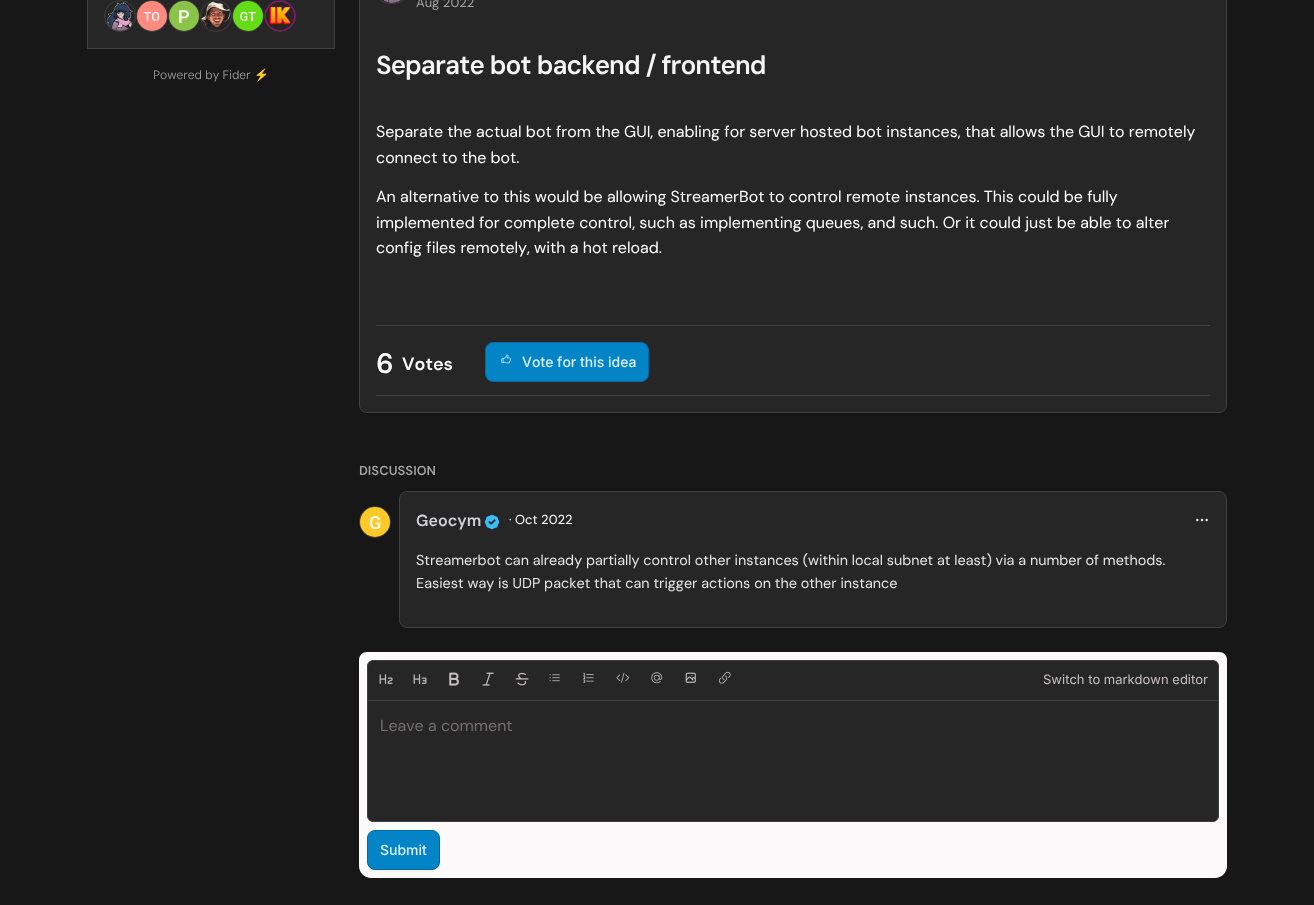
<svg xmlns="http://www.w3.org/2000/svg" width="1314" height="905">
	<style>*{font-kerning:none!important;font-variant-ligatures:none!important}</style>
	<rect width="100%" height="100%" fill="#171717" />
	<rect x="87.5" y="-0.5" width="247" height="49" fill="#262626" stroke="#404040" />
	<circle cx="120" cy="16" r="15.5" fill="none" stroke="#404040" />
	<image x="107" y="2" width="26" height="29" href="assets/img1.png" />
	<circle cx="152" cy="16" r="15.5" fill="none" stroke="#404040" />
	<image x="137" y="1" width="30" height="30" href="assets/img2.png" />
	<circle cx="184" cy="16" r="15.5" fill="none" stroke="#404040" />
	<image x="169" y="1" width="30" height="30" href="assets/img3.png" />
	<circle cx="216" cy="16" r="15.5" fill="none" stroke="#404040" />
	<image x="201" y="1" width="30" height="29" href="assets/img4.png" />
	<circle cx="248" cy="16" r="15.5" fill="none" stroke="#404040" />
	<image x="233" y="1" width="30" height="30" href="assets/img5.png" />
	<circle cx="280" cy="16" r="15.5" fill="none" stroke="#404040" />
	<image x="265" y="1" width="30" height="30" href="assets/img6.png" />
	<text x="153" y="79" font-family="DM Sans" font-size="12" font-weight="300" fill="#A3A3A3">Powered by Fider</text>
	<text x="254" y="79" font-family="Noto Color Emoji" font-size="12" fill="#A3A3A3">⚡</text>
	<path d="M371-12H1215C1221.5-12 1227-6.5 1227 0V405C1227 409.5 1223.5 413 1219 413H367C362.5 413 359 409.5 359 405V0C359-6.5 364.5-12 371-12Z" fill="#262626" />
	<path d="M359-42V405C359 409 363 413 367 413H1219C1223 413 1227 409 1227 405V-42C1227-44 1227-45 1226-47V405C1226 409 1223 412 1219 412H367C363 412 360 409 360 405V-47ZM367-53H1220L1215-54H371L366-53Z" fill="#404040" fill-rule="evenodd" />
	<rect x="376.5" y="-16.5" width="31" height="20" rx="15.5" fill="none" stroke="#404040" />
	<image x="383" y="0" width="18" height="3" href="assets/img7.png" />
	<text x="416" y="7" font-family="DM Sans" font-size="13" fill="#A3A3A3">Aug 2022</text>
	<text x="376" y="74" word-spacing="0.5" font-family="DM Sans" font-size="26" font-weight="600" letter-spacing="-1" fill="#F5F5F5">Separate bot backend / frontend</text>
	<g font-family="'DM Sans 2'" font-size="16" fill="#FFFFFF">
		<text x="376" y="137">Separate the actual bot from the GUI, enabling for server hosted bot instances,</text>
		<text x="965" y="137">that allows the GUI to remotely</text>
		<text x="376" y="163">connect to the bot.</text>
		<text x="376" y="202">An alternative to this would be allowing StreamerBot to control remote</text>
		<text x="905" y="202">instances. This could be fully</text>
		<text x="376" y="228">implemented for complete control, such as implementing queues, and such. Or it could just be able to alter</text>
		<text x="376" y="253">config files remotely, with a hot reload.</text>
	</g>
	<rect x="376" y="325" width="834" height="1" fill="#404040" />
	<rect x="376" y="395" width="834" height="1" fill="#404040" />
	<text x="376" y="373" font-family="DM Sans" font-size="28" font-weight="600" fill="#FFFFFF">6</text>
	<text x="402" y="370" font-family="'DM Sans 2'" font-size="18" font-weight="600" fill="#FFFFFF">Votes</text>
	<rect x="485.5" y="342.5" width="163" height="39" rx="7.5" fill="#0284C7" stroke="#0369A1" />
	<image x="501" y="354" width="10" height="10" href="assets/img8.png" />
	<text x="522" y="367" font-family="Inter" font-size="14" font-weight="500" fill="#DBF0FF">Vote for this idea</text>
	<text x="359" y="475" font-family="DM Sans" font-size="13" font-weight="600" fill="#A3A3A3">DISCUSSION</text>
	<circle cx="375" cy="522" r="15.5" fill="none" stroke="#404040" />
	<image x="360" y="507" width="30" height="30" href="assets/img9.png" />
	<rect x="399.5" y="491.5" width="827" height="136" rx="7.5" fill="#262626" stroke="#404040" />
	<text x="416" y="526" font-family="DM Sans" font-size="16" font-weight="600" fill="#D4D4D8">Geocym</text>
	<image x="484" y="514" width="16" height="16" href="assets/img10.png" />
	<text x="509" y="524" font-family="DM Sans" font-size="13" fill="#FFFFFF">· Oct 2022</text>
	<image x="1196" y="518" width="12" height="4" href="assets/img11.png" />
	<g font-family="'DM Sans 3'" font-size="14.4" fill="#E5E5E5">
		<text x="416" y="565">Streamerbot can already partially control other instances (within local subnet at least) via a number of methods.</text>
		<text x="416" y="588">Easiest way is UDP packet that can trigger actions on the other instance</text>
	</g>
	<path d="M367 652H1219C1223.5 652 1227 655.5 1227 660V866C1227 872.5 1221.5 878 1215 878H371C364.5 878 359 872.5 359 866V660C359 655.5 362.5 652 367 652Z" fill="#FCFAFA" />
	<rect x="367.5" y="660.5" width="851" height="161" rx="5.5" fill="#262626" stroke="#404040" />
	<rect x="368" y="700" width="850" height="1" fill="#404040" />
	<image x="379" y="674" width="14" height="10" href="assets/img12.png" />
	<image x="413" y="674" width="14" height="10" href="assets/img13.png" />
	<image x="449" y="672" width="10" height="14" href="assets/img14.png" />
	<image x="482" y="672" width="12" height="14" href="assets/img15.png" />
	<image x="515" y="672" width="14" height="14" href="assets/img16.png" />
	<image x="549" y="674" width="11" height="8" href="assets/img17.png" />
	<image x="583" y="672" width="11" height="11" href="assets/img18.png" />
	<image x="616" y="672" width="13" height="11" href="assets/img19.png" />
	<image x="651" y="672" width="12" height="12" href="assets/img20.png" />
	<image x="685" y="672" width="11" height="11" href="assets/img21.png" />
	<image x="718" y="671" width="13" height="13" href="assets/img22.png" />
	<text x="1043" y="684" font-family="Inter" font-size="13" fill="#C4BEC0">Switch to markdown editor</text>
	<text x="380" y="731" font-family="'DM Sans 2'" font-size="16" fill="#756E71">Leave a comment</text>
	<rect x="367" y="831" width="73" height="40" rx="8" fill="#000000" fill-opacity="0.05" filter="blur(1px)" />
	<rect x="367.5" y="830.5" width="72" height="39" rx="7.5" fill="#0284C7" stroke="#0369A1" />
	<text x="380" y="855" font-family="Inter" font-size="14" font-weight="500" fill="#DBF0FF">Submit</text>
</svg>
